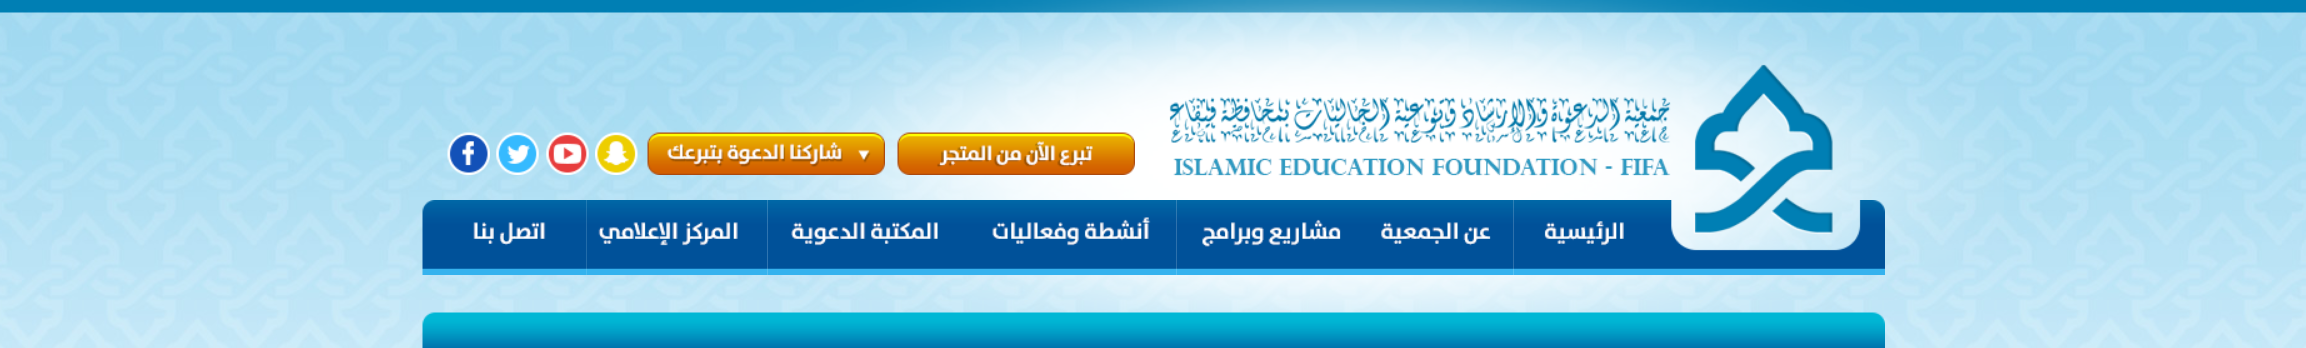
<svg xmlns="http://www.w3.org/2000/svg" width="2306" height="348">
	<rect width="100%" height="100%" fill="#FFFFFF" />
	<image x="0" y="0" width="2306" height="348" href="assets/img1.png" />
	<image x="702" y="0" width="1302" height="313" href="assets/img2.png" />
	<image x="447" y="132" width="43" height="43" href="assets/img3.png" />
	<image x="496" y="132" width="43" height="43" href="assets/img4.png" />
	<image x="546" y="132" width="43" height="43" href="assets/img5.png" />
	<image x="595" y="132" width="43" height="43" href="assets/img6.png" />
	<image x="647" y="132" width="238" height="43" href="assets/img7.png" />
	<image x="897" y="132" width="238" height="43" href="assets/img8.png" />
	<image x="422" y="200" width="165" height="75" href="assets/img9.png" />
	<image x="586" y="200" width="182" height="75" href="assets/img10.png" />
	<image x="767" y="200" width="203" height="75" href="assets/img11.png" />
	<image x="970" y="200" width="207" height="75" href="assets/img12.png" />
	<image x="1176" y="200" width="184" height="75" href="assets/img13.png" />
	<image x="1360" y="200" width="154" height="75" href="assets/img14.png" />
	<image x="1513" y="200" width="372" height="75" href="assets/img15.png" />
	<image x="422" y="312" width="1463" height="36" href="assets/img16.png" />
</svg>
